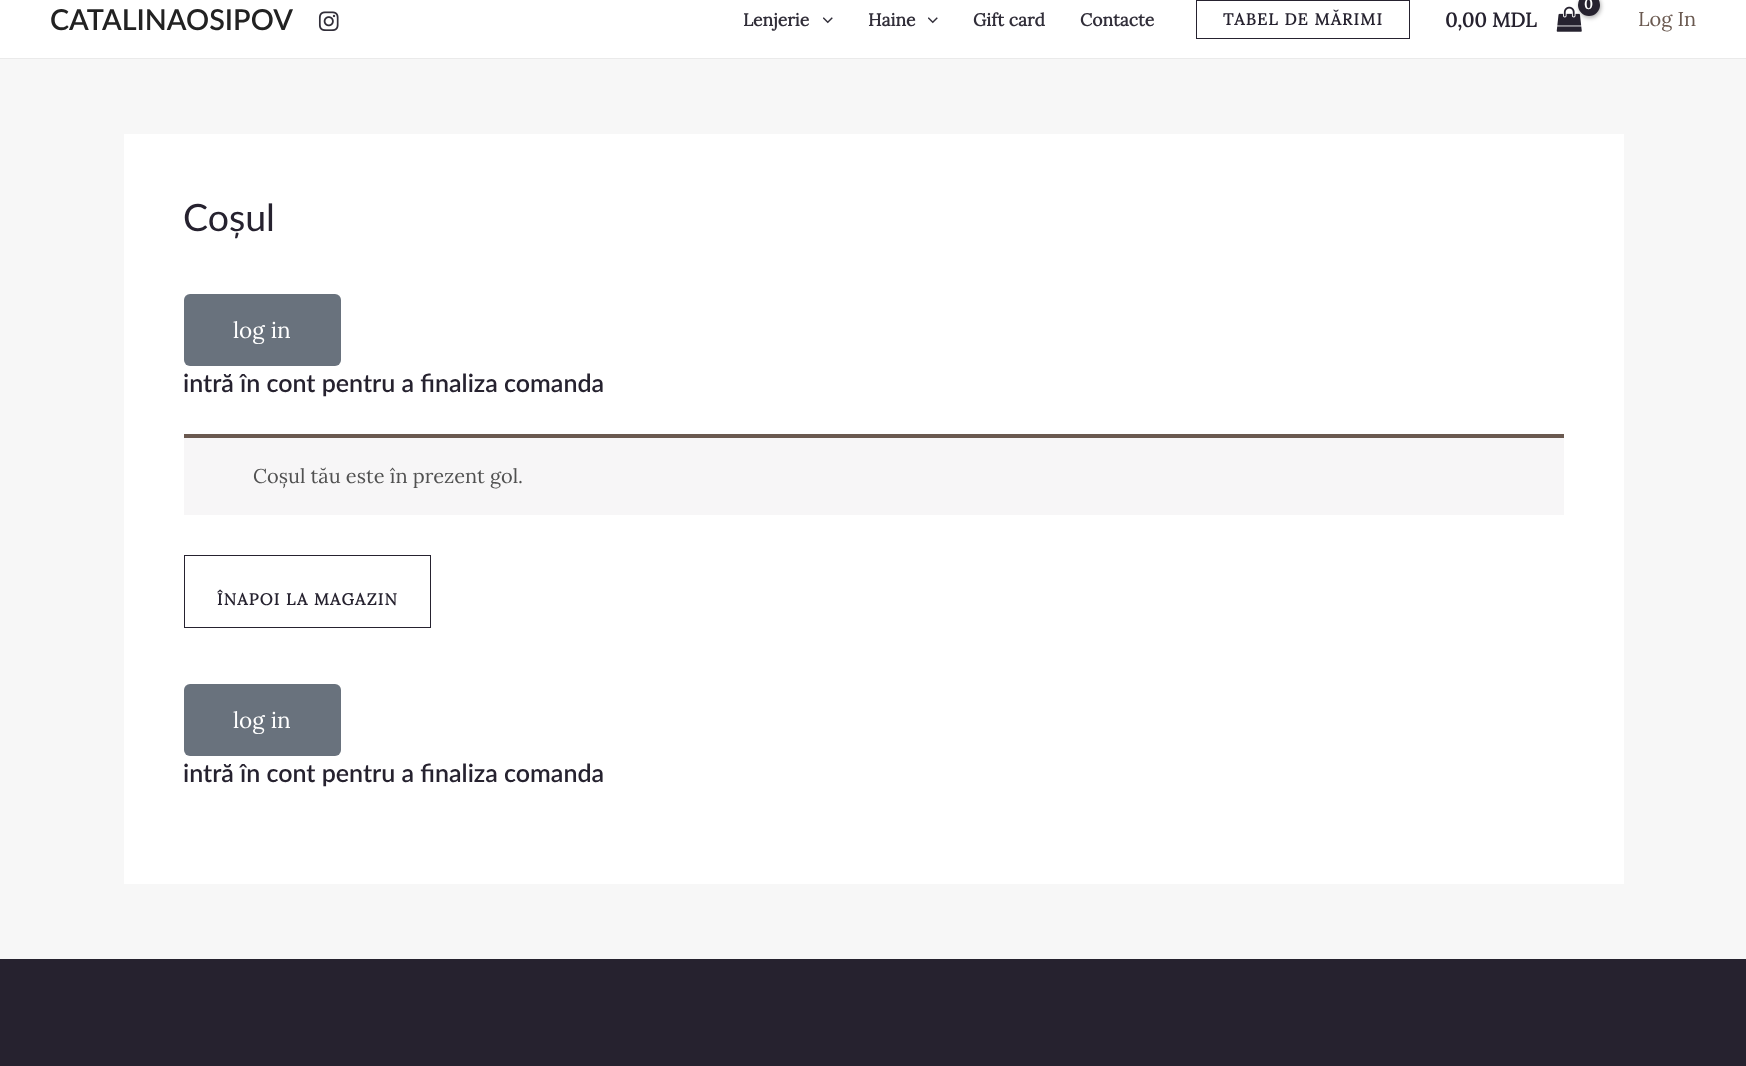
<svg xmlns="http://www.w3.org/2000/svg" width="1746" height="1066">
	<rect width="100%" height="100%" fill="#F7F7F7" />
	<rect x="0" y="0" width="1746" height="58" fill="#FFFFFF" />
	<rect x="0" y="58" width="1746" height="1" fill="#EAEAEA" />
	<text x="50" y="30" font-family="Lato" font-size="28.75" font-weight="600" fill="#222222">CATALINAOSIPOV</text>
	<image x="318" y="11" width="21" height="20" href="assets/img1.png" />
	<text x="743" y="26" font-family="Lora" font-size="17.5" font-weight="700" fill="#312E39">Lenjerie</text>
	<image x="823" y="17" width="10" height="7" href="assets/img2.png" />
	<text x="868" y="26" font-family="Lora" font-size="17.5" font-weight="700" fill="#312E39">Haine</text>
	<image x="928" y="17" width="10" height="7" href="assets/img2.png" />
	<g font-family="Lora" font-size="17.5" font-weight="700" fill="#312E39">
		<text x="973" y="26">Gift card</text>
		<text x="1080" y="26">Contacte</text>
	</g>
	<rect x="1196.5" y="0.5" width="213" height="38" fill="none" stroke="#26222F" />
	<text x="1223" y="25" font-family="Lora" font-size="16.25" font-weight="700" letter-spacing="1.25" fill="#26222F">TABEL DE MĂRIMI</text>
	<image x="1556" y="6" width="26" height="26" href="assets/img3.png" />
	<rect x="1579" y="-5" width="22" height="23" rx="11" fill="#000000" fill-opacity="0.3" filter="blur(2px)" />
	<circle cx="1589" cy="5" r="11" fill="#26222F" />
	<text x="1584" y="9" font-family="Lora" font-size="14" font-weight="700" letter-spacing="-1" fill="#FFFFFF">0</text>
	<text x="1445" y="27" font-family="Lora" font-size="20" font-weight="700" fill="#26222F">0,00 MDL</text>
	<text x="1638" y="26" font-family="Lora" font-size="20" fill="#6A5950">Log In</text>
	<rect x="124" y="134" width="1500" height="750" fill="#FFFFFF" />
	<text x="183" y="231" font-family="Lato" font-size="37.5" fill="#26222F">Coșul</text>
	<rect x="184" y="294" width="157" height="72" rx="6" fill="#69727D" />
	<text x="233" y="338" font-family="Lora" font-size="22.5" fill="#FFFFFF">log in</text>
	<text x="183" y="392" font-family="Lato" font-size="25" font-weight="600" fill="#26222F">intră în cont pentru a finaliza comanda</text>
	<rect x="184" y="438" width="1380" height="77" fill="#F7F6F7" />
	<rect x="184" y="434" width="1380" height="4" fill="#6A5950" />
	<text x="253" y="483" font-family="Lora" font-size="20" fill="#515151">Coșul tău este în prezent gol.</text>
	<rect x="184.5" y="555.5" width="246" height="72" fill="none" stroke="#26222F" />
	<text x="217" y="605" font-family="Lora" font-size="16.25" font-weight="700" letter-spacing="1.25" fill="#26222F">ÎNAPOI LA MAGAZIN</text>
	<rect x="184" y="684" width="157" height="72" rx="6" fill="#69727D" />
	<text x="233" y="728" font-family="Lora" font-size="22.5" fill="#FFFFFF">log in</text>
	<text x="183" y="782" font-family="Lato" font-size="25" font-weight="600" fill="#26222F">intră în cont pentru a finaliza comanda</text>
	<rect x="0" y="959" width="1746" height="107" fill="#26222F" />
</svg>
